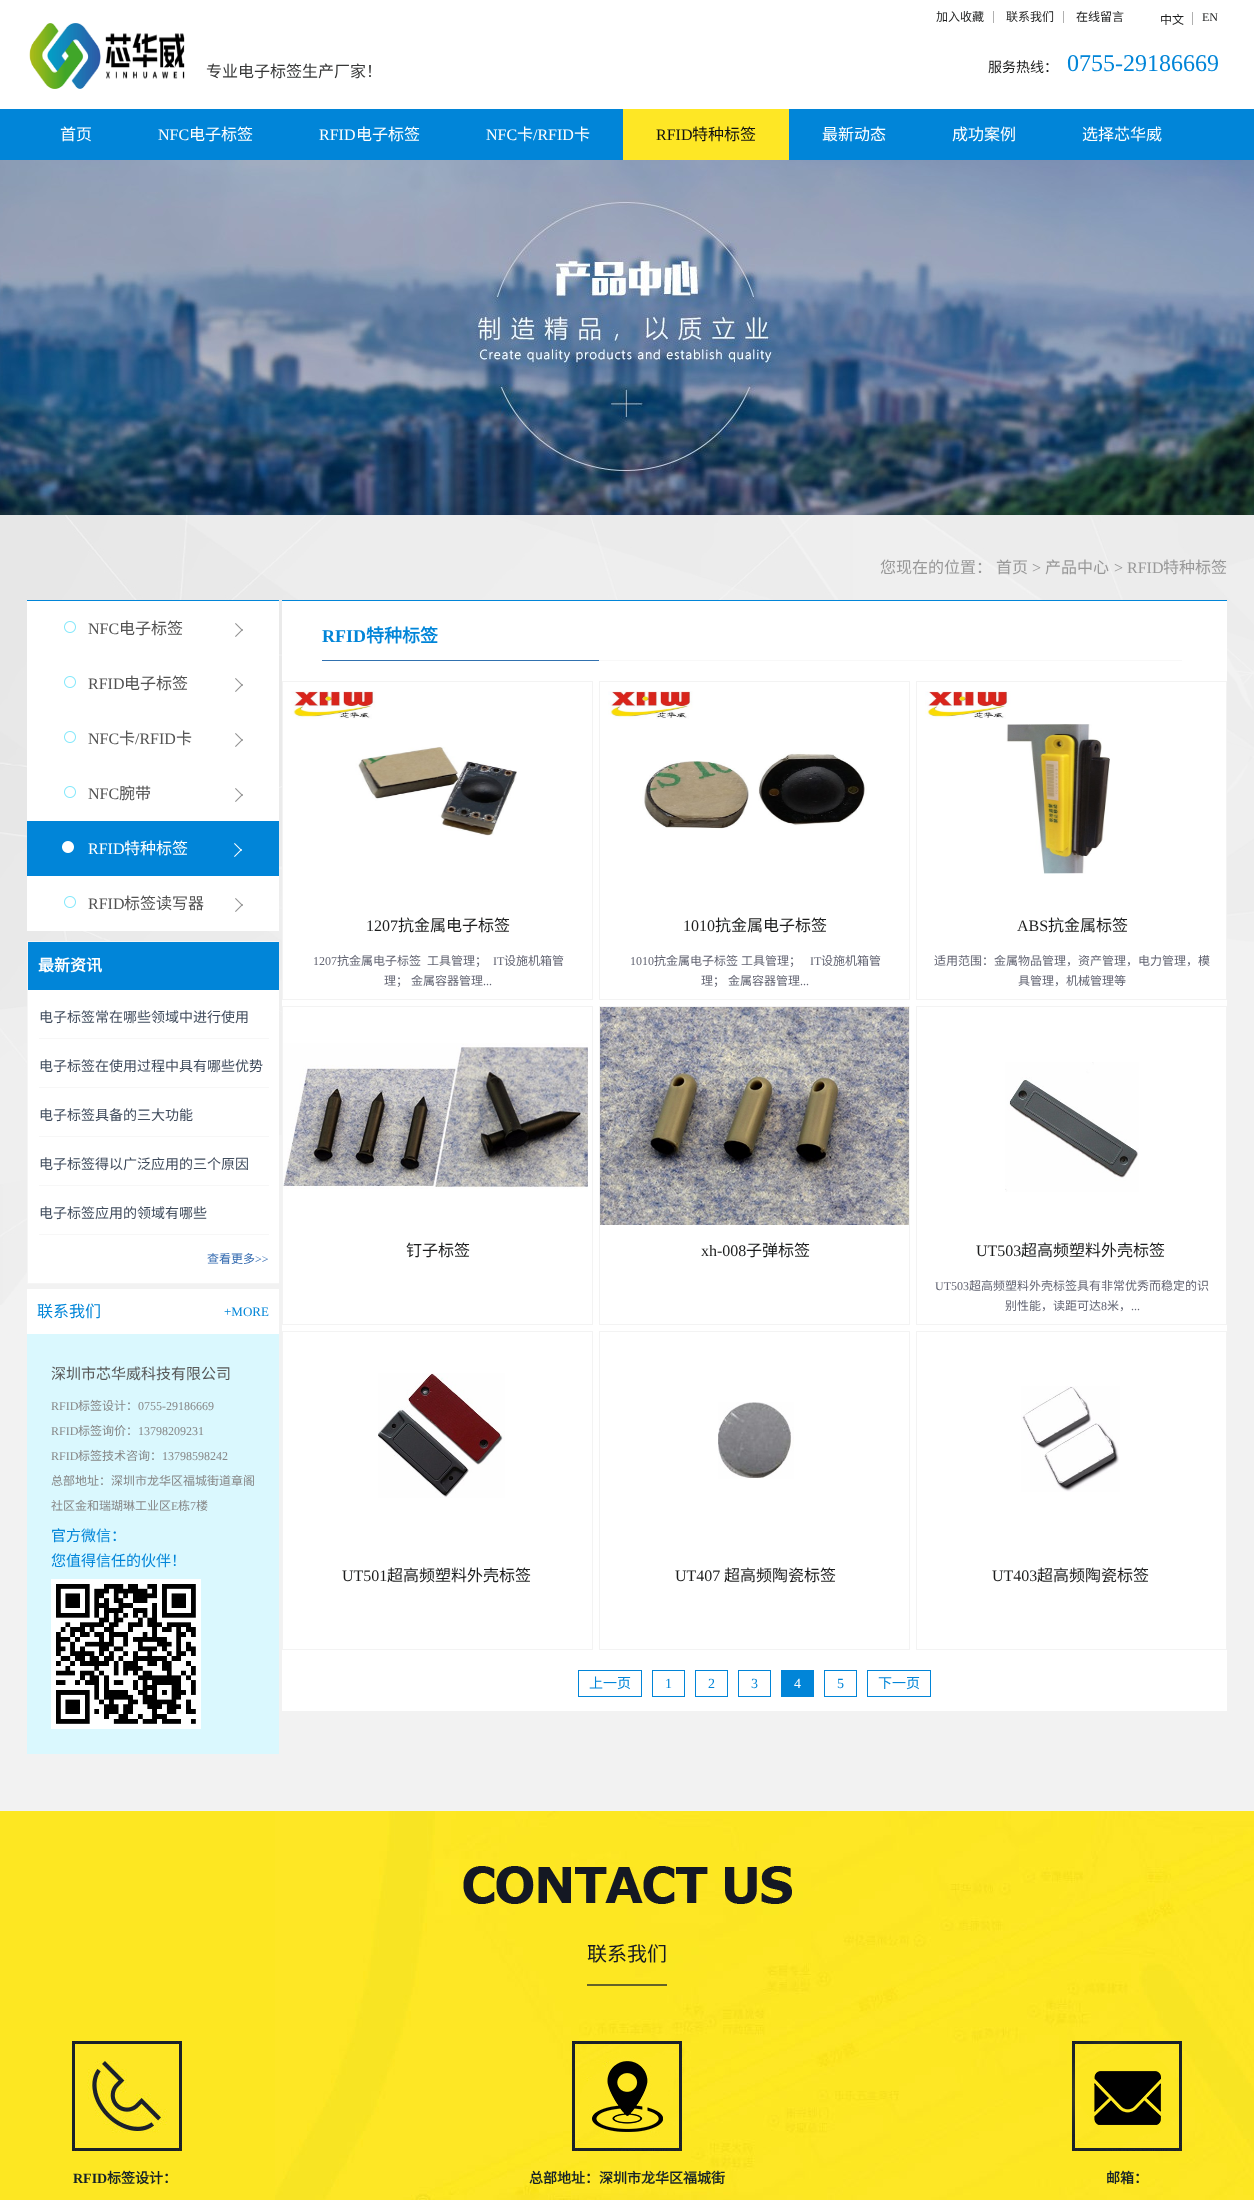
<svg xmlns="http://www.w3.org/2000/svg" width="1254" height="2200">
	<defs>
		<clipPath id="clip1"><rect x="27" y="601" width="252" height="1183" /></clipPath>
	</defs>
	<rect width="100%" height="100%" fill="#FFFFFF" />
	<rect x="993" y="11" width="1" height="12" fill="#B0B0B0" />
	<text x="936" y="21" font-family="Noto Sans CJK SC" font-size="12" fill="#1C1D1D">加入收藏</text>
	<rect x="1063" y="11" width="1" height="12" fill="#B0B0B0" />
	<g font-family="Noto Sans CJK SC" font-size="12" fill="#1C1D1D">
		<text x="1006" y="21">联系我们</text>
		<text x="1076" y="21">在线留言</text>
		<text x="1160" y="24">中文</text>
	</g>
	<rect x="1192" y="12" width="1" height="13" fill="#B0B0B0" />
	<text x="1202" y="21" font-family="Liberation Serif" font-size="12" fill="#1C1D1D">EN</text>
	<image x="29" y="23" width="156" height="66" href="assets/img1.png" />
	<text x="206" y="77" font-family="Noto Sans CJK SC" font-size="16" fill="#363737">专业电子标签生产厂家！</text>
	<text x="988" y="72" font-family="Noto Sans CJK SC" font-size="14" fill="#1C1D1D">服务热线：</text>
	<text x="1067" y="71" font-family="Liberation Serif" font-size="24" fill="#0185D8">0755-29186669</text>
	<rect x="0" y="109" width="1254" height="51" fill="#0185D8" />
	<text x="60" y="140" font-family="Noto Sans CJK SC" font-size="16" fill="#FFFFFF">首页</text>
	<text x="158" y="140" font-family="Liberation Serif" font-size="16" fill="#FFFFFF">NFC</text>
	<text x="189" y="140" font-family="Noto Sans CJK SC" font-size="16" fill="#FFFFFF">电子标签</text>
	<text x="319" y="140" font-family="Liberation Serif" font-size="16" fill="#FFFFFF">RFID</text>
	<text x="356" y="140" font-family="Noto Sans CJK SC" font-size="16" fill="#FFFFFF">电子标签</text>
	<text x="486" y="140" font-family="Liberation Serif" font-size="16" fill="#FFFFFF">NFC</text>
	<text x="517" y="140" font-family="Noto Sans CJK SC" font-size="16" fill="#FFFFFF">卡</text>
	<text x="533" y="140" font-family="Liberation Serif" font-size="16" fill="#FFFFFF">/RFID</text>
	<text x="574" y="140" font-family="Noto Sans CJK SC" font-size="16" fill="#FFFFFF">卡</text>
	<rect x="623" y="109" width="166" height="51" fill="#FEE725" />
	<text x="656" y="140" font-family="Liberation Serif" font-size="16" fill="#111111">RFID</text>
	<text x="692" y="140" font-family="Noto Sans CJK SC" font-size="16" fill="#111111">特种标签</text>
	<g font-family="Noto Sans CJK SC" font-size="16" fill="#FFFFFF">
		<text x="822" y="140">最新动态</text>
		<text x="952" y="140">成功案例</text>
		<text x="1082" y="140">选择芯华威</text>
	</g>
	<image x="0" y="160" width="1254" height="355" href="assets/img2.png" />
	<rect x="0" y="1305" width="1254" height="506" fill="#F2F2F2" />
	<image x="0" y="515" width="1254" height="790" href="assets/img3.png" />
	<g font-family="Noto Sans CJK SC" font-size="16" fill="#989898">
		<text x="880" y="573">您现在的位置：</text>
		<text x="996" y="573">首页</text>
	</g>
	<text x="1032" y="573" font-family="Liberation Serif" font-size="16" fill="#989898">&gt;</text>
	<text x="1045" y="573" font-family="Noto Sans CJK SC" font-size="16" fill="#989898">产品中心</text>
	<text x="1114" y="573" font-family="Liberation Serif" font-size="16" fill="#989898">&gt; RFID</text>
	<text x="1163" y="573" font-family="Noto Sans CJK SC" font-size="16" fill="#989898">特种标签</text>
	<rect x="27" y="600" width="252" height="1" fill="#0185D8" />
	<rect x="27" y="601" width="252" height="330" fill="#FFFFFF" />
	<image x="64" y="621" width="179" height="16" href="assets/img4.png" />
	<text x="88" y="634" font-family="Liberation Serif" font-size="16" fill="#525252">NFC</text>
	<text x="119" y="634" font-family="Noto Sans CJK SC" font-size="16" fill="#525252">电子标签</text>
	<image x="64" y="676" width="179" height="16" href="assets/img4.png" />
	<text x="88" y="689" font-family="Liberation Serif" font-size="16" fill="#525252">RFID</text>
	<text x="124" y="689" font-family="Noto Sans CJK SC" font-size="16" fill="#525252">电子标签</text>
	<image x="64" y="731" width="179" height="16" href="assets/img4.png" />
	<text x="88" y="744" font-family="Liberation Serif" font-size="16" fill="#525252">NFC</text>
	<text x="119" y="744" font-family="Noto Sans CJK SC" font-size="16" fill="#525252">卡</text>
	<text x="135" y="744" font-family="Liberation Serif" font-size="16" fill="#525252">/RFID</text>
	<text x="176" y="744" font-family="Noto Sans CJK SC" font-size="16" fill="#525252">卡</text>
	<image x="64" y="786" width="179" height="16" href="assets/img4.png" />
	<text x="88" y="799" font-family="Liberation Serif" font-size="16" fill="#525252">NFC</text>
	<text x="119" y="799" font-family="Noto Sans CJK SC" font-size="16" fill="#525252">腕带</text>
	<rect x="27" y="821" width="252" height="55" fill="#0185D8" />
	<image x="62" y="841" width="180" height="16" href="assets/img5.png" />
	<text x="88" y="854" font-family="Liberation Serif" font-size="16" fill="#FFFFFF">RFID</text>
	<text x="124" y="854" font-family="Noto Sans CJK SC" font-size="16" fill="#FFFFFF">特种标签</text>
	<image x="64" y="896" width="179" height="16" href="assets/img4.png" />
	<text x="88" y="909" font-family="Liberation Serif" font-size="16" fill="#525252">RFID</text>
	<text x="124" y="909" font-family="Noto Sans CJK SC" font-size="16" fill="#525252">标签读写器</text>
	<rect x="28" y="990" width="251" height="293" fill="#FFFFFF" />
	<g clip-path="url(#clip1)">
		<rect x="27.5" y="941.5" width="253" height="342" fill="none" stroke="#F5F5F5" />
	</g>
	<rect x="28" y="942" width="251" height="48" fill="#0185D8" />
	<text x="38" y="971" font-family="Noto Sans CJK SC" font-size="16" font-weight="700" fill="#FFFFFF">最新资讯</text>
	<rect x="39" y="1038" width="230" height="1" fill="#F7F7F7" />
	<text x="39" y="1022" font-family="Noto Sans CJK SC" font-size="14" fill="#3F4B5C">电子标签常在哪些领域中进行使用</text>
	<rect x="39" y="1087" width="230" height="1" fill="#F7F7F7" />
	<text x="39" y="1071" font-family="Noto Sans CJK SC" font-size="14" fill="#3F4B5C">电子标签在使用过程中具有哪些优势</text>
	<rect x="39" y="1136" width="230" height="1" fill="#F7F7F7" />
	<text x="39" y="1120" font-family="Noto Sans CJK SC" font-size="14" fill="#3F4B5C">电子标签具备的三大功能</text>
	<rect x="39" y="1185" width="230" height="1" fill="#F7F7F7" />
	<text x="39" y="1169" font-family="Noto Sans CJK SC" font-size="14" fill="#3F4B5C">电子标签得以广泛应用的三个原因</text>
	<rect x="39" y="1234" width="230" height="1" fill="#F7F7F7" />
	<text x="39" y="1218" font-family="Noto Sans CJK SC" font-size="14" fill="#3F4B5C">电子标签应用的领域有哪些</text>
	<text x="207" y="1263" font-family="Noto Sans CJK SC" font-size="12" fill="#346BB0">查看更多</text>
	<text x="255" y="1263" font-family="Liberation Serif" font-size="12" fill="#346BB0">&gt;&gt;</text>
	<rect x="27" y="1334" width="252" height="420" fill="#DAF8FE" />
	<rect x="27" y="1289" width="252" height="45" fill="#FFFFFF" />
	<text x="37" y="1317" font-family="Noto Sans CJK SC" font-size="16" fill="#0185D8">联系我们</text>
	<text x="224" y="1316" font-family="Liberation Serif" font-size="13" fill="#0185D8">+MORE</text>
	<text x="51" y="1379" font-family="Noto Sans CJK SC" font-size="15" fill="#585858">深圳市芯华威科技有限公司</text>
	<text x="51" y="1410" font-family="Liberation Serif" font-size="12" fill="#878787">RFID</text>
	<text x="78" y="1410" font-family="Noto Sans CJK SC" font-size="12" fill="#878787">标签设计：</text>
	<g font-family="Liberation Serif" font-size="12" fill="#878787">
		<text x="138" y="1410">0755-29186669</text>
		<text x="51" y="1435">RFID</text>
	</g>
	<text x="78" y="1435" font-family="Noto Sans CJK SC" font-size="12" fill="#878787">标签询价：</text>
	<g font-family="Liberation Serif" font-size="12" fill="#878787">
		<text x="138" y="1435">13798209231</text>
		<text x="51" y="1460">RFID</text>
	</g>
	<text x="78" y="1460" font-family="Noto Sans CJK SC" font-size="12" fill="#878787">标签技术咨询：</text>
	<text x="162" y="1460" font-family="Liberation Serif" font-size="12" fill="#878787">13798598242</text>
	<g font-family="Noto Sans CJK SC" font-size="12" fill="#878787">
		<text x="51" y="1485">总部地址：深圳市龙华区福城街道章阁</text>
		<text x="51" y="1510">社区金和瑞瑚琳工业区</text>
	</g>
	<text x="171" y="1510" font-family="Liberation Serif" font-size="12" fill="#878787">E</text>
	<text x="178" y="1510" font-family="Noto Sans CJK SC" font-size="12" fill="#878787">栋</text>
	<text x="190" y="1510" font-family="Liberation Serif" font-size="12" fill="#878787">7</text>
	<text x="196" y="1510" font-family="Noto Sans CJK SC" font-size="12" fill="#878787">楼</text>
	<g font-family="Noto Sans CJK SC" font-size="15" fill="#0185D8">
		<text x="51" y="1541">官方微信：</text>
		<text x="51" y="1566">您值得信任的伙伴！</text>
	</g>
	<image x="51" y="1579" width="150" height="150" href="assets/img6.png" />
	<rect x="282" y="601" width="945" height="1110" fill="#FFFFFF" />
	<rect x="282" y="600" width="945" height="1" fill="#0185D8" />
	<image x="322" y="660" width="860" height="1" href="assets/img7.png" />
	<text x="322" y="642" font-family="Liberation Serif" font-size="18" font-weight="700" fill="#0185D8">RFID</text>
	<text x="366" y="642" font-family="Noto Sans CJK SC" font-size="18" font-weight="700" fill="#0185D8">特种标签</text>
	<rect x="282.5" y="681.5" width="310" height="318" fill="none" stroke="#F3F3F3" />
	<image x="291" y="691" width="226" height="145" href="assets/img8.png" />
	<text x="366" y="931" font-family="Liberation Serif" font-size="16" fill="#1C1D1D">1207</text>
	<text x="398" y="931" font-family="Noto Sans CJK SC" font-size="16" fill="#1C1D1D">抗金属电子标签</text>
	<text x="313" y="965" font-family="Liberation Serif" font-size="12" fill="#636573">1207</text>
	<g font-family="Noto Sans CJK SC" font-size="12" fill="#636573">
		<text x="337" y="965">抗金属电子标签</text>
		<text x="427" y="965">工具管理；</text>
	</g>
	<text x="493" y="965" font-family="Liberation Serif" font-size="12" fill="#636573">IT</text>
	<g font-family="Noto Sans CJK SC" font-size="12" fill="#636573">
		<text x="504" y="965">设施机箱管</text>
		<text x="384" y="985">理；</text>
		<text x="411" y="985">金属容器管理</text>
	</g>
	<text x="483" y="985" font-family="Liberation Serif" font-size="12" fill="#636573">...</text>
	<rect x="599.5" y="681.5" width="310" height="318" fill="none" stroke="#F3F3F3" />
	<image x="608" y="691" width="259" height="138" href="assets/img9.png" />
	<text x="683" y="931" font-family="Liberation Serif" font-size="16" fill="#1C1D1D">1010</text>
	<text x="715" y="931" font-family="Noto Sans CJK SC" font-size="16" fill="#1C1D1D">抗金属电子标签</text>
	<text x="630" y="965" font-family="Liberation Serif" font-size="12" fill="#636573">1010</text>
	<g font-family="Noto Sans CJK SC" font-size="12" fill="#636573">
		<text x="654" y="965">抗金属电子标签</text>
		<text x="741" y="965">工具管理；</text>
	</g>
	<text x="810" y="965" font-family="Liberation Serif" font-size="12" fill="#636573">IT</text>
	<g font-family="Noto Sans CJK SC" font-size="12" fill="#636573">
		<text x="821" y="965">设施机箱管</text>
		<text x="701" y="985">理；</text>
		<text x="728" y="985">金属容器管理</text>
	</g>
	<text x="800" y="985" font-family="Liberation Serif" font-size="12" fill="#636573">...</text>
	<rect x="916.5" y="681.5" width="310" height="318" fill="none" stroke="#F3F3F3" />
	<image x="925" y="691" width="185" height="183" href="assets/img10.png" />
	<text x="1017" y="931" font-family="Liberation Serif" font-size="16" fill="#1C1D1D">ABS</text>
	<text x="1048" y="931" font-family="Noto Sans CJK SC" font-size="16" fill="#1C1D1D">抗金属标签</text>
	<g font-family="Noto Sans CJK SC" font-size="12" fill="#636573">
		<text x="934" y="965">适用范围：金属物品管理，资产管理，电力管理，模</text>
		<text x="1018" y="985">具管理，机械管理等</text>
	</g>
	<rect x="282.5" y="1006.5" width="310" height="318" fill="none" stroke="#F3F3F3" />
	<image x="283" y="1043" width="305" height="146" href="assets/img11.png" />
	<text x="406" y="1256" font-family="Noto Sans CJK SC" font-size="16" fill="#1C1D1D">钉子标签</text>
	<rect x="599.5" y="1006.5" width="310" height="318" fill="none" stroke="#F3F3F3" />
	<image x="600" y="1007" width="309" height="218" href="assets/img12.png" />
	<text x="701" y="1256" font-family="Liberation Serif" font-size="16" fill="#1C1D1D">xh-008</text>
	<text x="746" y="1256" font-family="Noto Sans CJK SC" font-size="16" fill="#1C1D1D">子弹标签</text>
	<rect x="916.5" y="1006.5" width="310" height="318" fill="none" stroke="#F3F3F3" />
	<image x="1005" y="1062" width="134" height="130" href="assets/img13.png" />
	<text x="976" y="1256" font-family="Liberation Serif" font-size="16" fill="#1C1D1D">UT503</text>
	<text x="1021" y="1256" font-family="Noto Sans CJK SC" font-size="16" fill="#1C1D1D">超高频塑料外壳标签</text>
	<text x="935" y="1290" font-family="Liberation Serif" font-size="12" fill="#636573">UT503</text>
	<g font-family="Noto Sans CJK SC" font-size="12" fill="#636573">
		<text x="969" y="1290">超高频塑料外壳标签具有非常优秀而稳定的识</text>
		<text x="1005" y="1310">别性能，读距可达</text>
	</g>
	<text x="1101" y="1310" font-family="Liberation Serif" font-size="12" fill="#636573">8</text>
	<text x="1107" y="1310" font-family="Noto Sans CJK SC" font-size="12" fill="#636573">米，</text>
	<text x="1131" y="1310" font-family="Liberation Serif" font-size="12" fill="#636573">...</text>
	<rect x="282.5" y="1331.5" width="310" height="318" fill="none" stroke="#F3F3F3" />
	<image x="378" y="1373" width="127" height="125" href="assets/img14.png" />
	<text x="342" y="1581" font-family="Liberation Serif" font-size="16" fill="#1C1D1D">UT501</text>
	<text x="387" y="1581" font-family="Noto Sans CJK SC" font-size="16" fill="#1C1D1D">超高频塑料外壳标签</text>
	<rect x="599.5" y="1331.5" width="310" height="318" fill="none" stroke="#F3F3F3" />
	<image x="718" y="1402" width="76" height="77" href="assets/img15.png" />
	<text x="675" y="1581" font-family="Liberation Serif" font-size="16" fill="#1C1D1D">UT407</text>
	<text x="724" y="1581" font-family="Noto Sans CJK SC" font-size="16" fill="#1C1D1D">超高频陶瓷标签</text>
	<rect x="916.5" y="1331.5" width="310" height="318" fill="none" stroke="#F3F3F3" />
	<image x="1021" y="1386" width="99" height="106" href="assets/img16.png" />
	<text x="992" y="1581" font-family="Liberation Serif" font-size="16" fill="#1C1D1D">UT403</text>
	<text x="1037" y="1581" font-family="Noto Sans CJK SC" font-size="16" fill="#1C1D1D">超高频陶瓷标签</text>
	<rect x="578.5" y="1670.5" width="63" height="26" fill="none" stroke="#0185D8" />
	<text x="589" y="1688" font-family="Noto Sans CJK SC" font-size="14" fill="#0185D8">上一页</text>
	<rect x="652.5" y="1670.5" width="32" height="26" fill="none" stroke="#0185D8" />
	<text x="665" y="1688" font-family="Liberation Serif" font-size="14" fill="#0185D8">1</text>
	<rect x="695.5" y="1670.5" width="32" height="26" fill="none" stroke="#0185D8" />
	<text x="708" y="1688" font-family="Liberation Serif" font-size="14" fill="#0185D8">2</text>
	<rect x="738.5" y="1670.5" width="32" height="26" fill="none" stroke="#0185D8" />
	<text x="751" y="1688" font-family="Liberation Serif" font-size="14" fill="#0185D8">3</text>
	<rect x="781" y="1670" width="33" height="27" fill="#0185D8" />
	<text x="794" y="1688" font-family="Liberation Serif" font-size="14" fill="#FFFFFF">4</text>
	<rect x="824.5" y="1670.5" width="32" height="26" fill="none" stroke="#0185D8" />
	<text x="837" y="1688" font-family="Liberation Serif" font-size="14" fill="#0185D8">5</text>
	<rect x="867.5" y="1670.5" width="63" height="26" fill="none" stroke="#0185D8" />
	<text x="878" y="1688" font-family="Noto Sans CJK SC" font-size="14" fill="#0185D8">下一页</text>
	<rect x="0" y="1811" width="275" height="389" fill="#FDE722" />
	<image x="275" y="1811" width="979" height="389" href="assets/img17.png" />
	<image x="463" y="1866" width="329" height="38" href="assets/img18.png" />
	<rect x="587" y="1984" width="80" height="2" fill="#656327" />
	<text x="587" y="1961" font-family="Noto Sans CJK SC" font-size="20" fill="#141823">联系我们</text>
	<image x="72" y="2041" width="110" height="110" href="assets/img19.png" />
	<text x="73" y="2183" font-family="Liberation Serif" font-size="14" font-weight="700" fill="#152228">RFID</text>
	<text x="107" y="2183" font-family="Noto Sans CJK SC" font-size="14" font-weight="700" fill="#152228">标签设计：</text>
	<image x="572" y="2041" width="110" height="110" href="assets/img20.png" />
	<text x="529" y="2183" font-family="Noto Sans CJK SC" font-size="14" font-weight="700" fill="#152228">总部地址：深圳市龙华区福城街</text>
	<image x="1072" y="2041" width="110" height="110" href="assets/img21.png" />
	<text x="1106" y="2183" font-family="Noto Sans CJK SC" font-size="14" font-weight="700" fill="#152228">邮箱：</text>
</svg>
